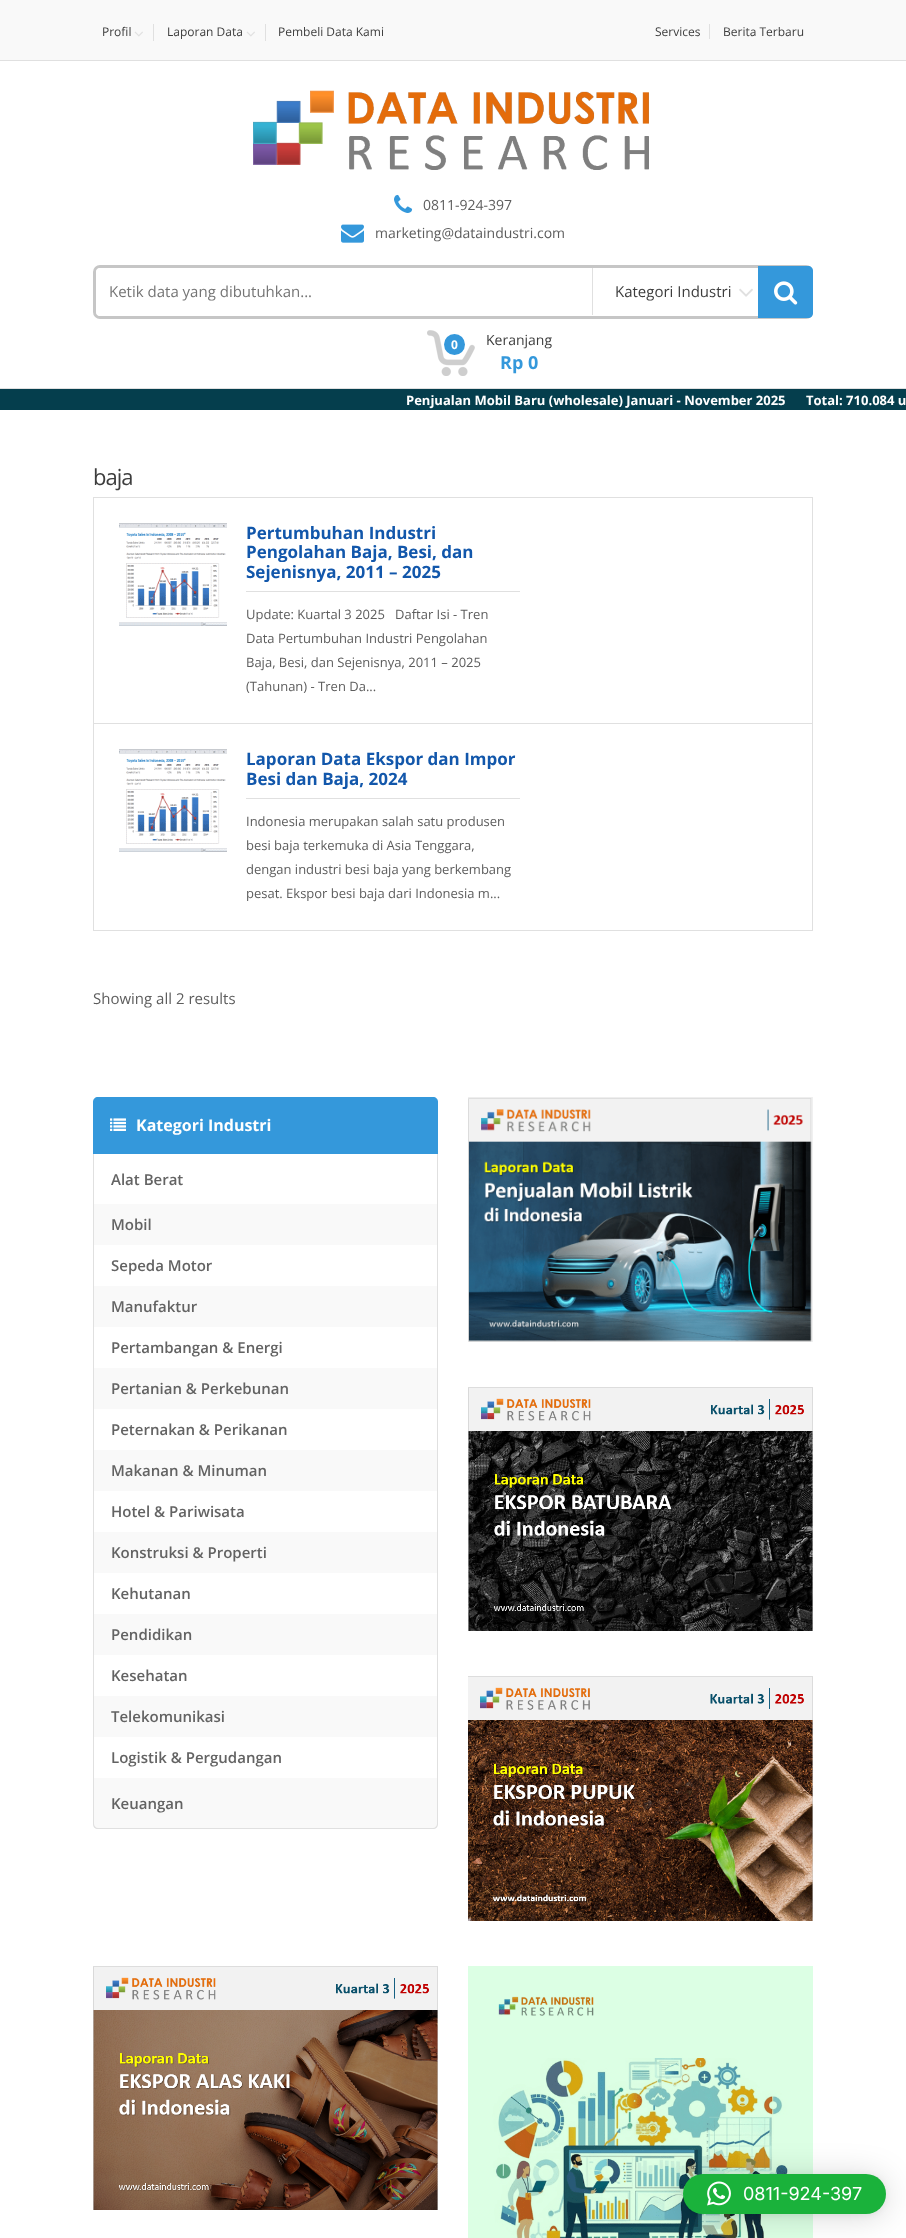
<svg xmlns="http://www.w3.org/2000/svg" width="906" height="2238">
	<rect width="100%" height="100%" fill="#FFFFFF" />
	<rect x="0" y="0" width="906" height="60" fill="#F9F9F9" />
	<rect x="0" y="60" width="906" height="1" fill="#E0E0E0" />
	<rect x="153" y="24" width="1" height="17" fill="#E0E0E0" />
	<text x="102" y="36" font-family="Open Sans" font-size="12" fill="#3D3D3D">Profil</text>
	<image x="134" y="31" width="9" height="6" href="assets/img1.png" />
	<rect x="265" y="24" width="1" height="17" fill="#E0E0E0" />
	<text x="167" y="36" font-family="Open Sans" font-size="12" fill="#3D3D3D">Laporan Data</text>
	<image x="246" y="31" width="9" height="6" href="assets/img1.png" />
	<text x="278" y="36" font-family="Open Sans" font-size="12" fill="#3D3D3D">Pembeli Data Kami</text>
	<rect x="709" y="24" width="1" height="15" fill="#E0E0E0" />
	<g font-family="Open Sans" font-size="12" fill="#3D3D3D">
		<text x="655" y="36">Services</text>
		<text x="723" y="36">Berita Terbaru</text>
	</g>
	<rect x="0" y="388" width="906" height="1" fill="#E0E0E0" />
	<image x="253" y="90" width="396" height="80" href="assets/img2.png" />
	<image x="394" y="194" width="19" height="19" href="assets/img3.png" />
	<text x="423" y="210" font-family="Open Sans" font-size="14" fill="#5D5D5D">0811-924-397</text>
	<image x="341" y="224" width="23" height="19" href="assets/img4.png" />
	<text x="375" y="238" font-family="Open Sans" font-size="14" fill="#5D5D5D">marketing@dataindustri.com</text>
	<rect x="94.5" y="266.5" width="717" height="51" rx="5.5" fill="none" stroke="#C6C6C6" stroke-width="3" />
	<path d="M101 268H588V316H101C98 316 96 314 96 311V273C96 270 98 268 101 268Z" fill="#FFFFFF" />
	<text x="109" y="297" font-family="Open Sans" font-size="15" fill="#757575">Ketik data yang dibutuhkan...</text>
	<rect x="592" y="268" width="1" height="47" fill="#E0E0E0" />
	<text x="615" y="297" font-family="Open Sans" font-size="15" fill="#3D3D3D">Kategori Industri</text>
	<image x="739" y="288" width="14" height="9" href="assets/img5.png" />
	<path d="M758 266H808C811 266 813 268 813 271V313C813 316 811 318 808 318H758Z" fill="#3498DB" />
	<image x="774" y="281" width="24" height="24" href="assets/img6.png" />
	<image x="427" y="330" width="48" height="46" href="assets/img7.png" />
	<circle cx="454.5" cy="344.5" r="10.5" fill="#3498DB" />
	<text x="451" y="349" font-family="Open Sans" font-size="12" font-weight="700" fill="#FFFFFF">0</text>
	<text x="486" y="345" font-family="Open Sans" font-size="14" fill="#3D3D3D">Keranjang</text>
	<text x="500" y="369" font-family="Open Sans" font-size="18" font-weight="700" fill="#3498DB">Rp 0</text>
	<rect x="0" y="389" width="906" height="21" fill="#053E4D" />
	<g font-family="Open Sans" font-size="13" font-weight="700" fill="#FFFFFF">
		<text x="406" y="405">Penjualan Mobil Baru (wholesale) Januari - November 2025</text>
		<text x="806" y="405">Total: 710.084 u</text>
	</g>
	<text x="93" y="485" font-family="Open Sans" font-size="22" letter-spacing="-1" fill="#3D3D3D">baja</text>
	<rect x="93" y="497" width="720" height="1" fill="#E0E0E0" />
	<rect x="812" y="497" width="1" height="226" fill="#E0E0E0" />
	<rect x="93" y="497" width="1" height="226" fill="#E0E0E0" />
	<image x="119" y="523" width="108" height="103" href="assets/img8.png" />
	<g font-family="Open Sans" font-size="17" font-weight="700" fill="#1257AB">
		<text x="246" y="539">Pertumbuhan Industri</text>
		<text x="246" y="558">Pengolahan Baja, Besi, dan</text>
		<text x="246" y="578">Sejenisnya, 2011 – 2025</text>
	</g>
	<rect x="246" y="591" width="274" height="1" fill="#E0E0E0" />
	<g font-family="Open Sans" font-size="13" fill="#5D5D5D">
		<text x="246" y="619">Update: Kuartal 3 2025</text>
		<text x="395" y="619">Daftar Isi - Tren</text>
		<text x="246" y="643">Data Pertumbuhan Industri Pengolahan</text>
		<text x="246" y="667">Baja, Besi, dan Sejenisnya, 2011 – 2025</text>
		<text x="246" y="691">(Tahunan) - Tren Da...</text>
	</g>
	<rect x="93.5" y="723.5" width="719" height="207" fill="none" stroke="#E0E0E0" />
	<image x="119" y="749" width="108" height="103" href="assets/img8.png" />
	<g font-family="Open Sans" font-size="17" font-weight="700" fill="#1257AB">
		<text x="246" y="765">Laporan Data Ekspor dan Impor</text>
		<text x="246" y="785">Besi dan Baja, 2024</text>
	</g>
	<rect x="246" y="798" width="274" height="1" fill="#E0E0E0" />
	<g font-family="Open Sans" font-size="13" fill="#5D5D5D">
		<text x="246" y="826">Indonesia merupakan salah satu produsen</text>
		<text x="246" y="850">besi baja terkemuka di Asia Tenggara,</text>
		<text x="246" y="874">dengan industri besi baja yang berkembang</text>
		<text x="246" y="898">pesat. Ekspor besi baja dari Indonesia m...</text>
	</g>
	<text x="93" y="1004" font-family="Open Sans" font-size="15" fill="#5D5D5D">Showing all 2 results</text>
	<path d="M98 1097H433C436 1097 438 1099 438 1102V1154H93V1102C93 1099 95 1097 98 1097Z" fill="#3498DB" />
	<image x="110" y="1118" width="16" height="13" href="assets/img9.png" />
	<text x="136" y="1131" font-family="Open Sans" font-size="16" font-weight="700" fill="#FFFFFF">Kategori Industri</text>
	<rect x="437" y="1154" width="1" height="624" fill="#E0E0E0" />
	<rect x="93" y="1154" width="1" height="624" fill="#E0E0E0" />
	<text x="111" y="1185" font-family="Open Sans" font-size="15" font-weight="600" fill="#636363">Alat Berat</text>
	<rect x="94" y="1204" width="343" height="41" fill="#F9F9F9" />
	<g font-family="Open Sans" font-size="15" font-weight="600" fill="#636363">
		<text x="111" y="1230">Mobil</text>
		<text x="111" y="1271">Sepeda Motor</text>
	</g>
	<rect x="94" y="1286" width="343" height="41" fill="#F9F9F9" />
	<g font-family="Open Sans" font-size="15" font-weight="600" fill="#636363">
		<text x="111" y="1312">Manufaktur</text>
		<text x="111" y="1353">Pertambangan &amp; Energi</text>
	</g>
	<rect x="94" y="1368" width="343" height="41" fill="#F9F9F9" />
	<g font-family="Open Sans" font-size="15" font-weight="600" fill="#636363">
		<text x="111" y="1394">Pertanian &amp; Perkebunan</text>
		<text x="111" y="1435">Peternakan &amp; Perikanan</text>
	</g>
	<rect x="94" y="1450" width="343" height="41" fill="#F9F9F9" />
	<g font-family="Open Sans" font-size="15" font-weight="600" fill="#636363">
		<text x="111" y="1476">Makanan &amp; Minuman</text>
		<text x="111" y="1517">Hotel &amp; Pariwisata</text>
	</g>
	<rect x="94" y="1532" width="343" height="41" fill="#F9F9F9" />
	<g font-family="Open Sans" font-size="15" font-weight="600" fill="#636363">
		<text x="111" y="1558">Konstruksi &amp; Properti</text>
		<text x="111" y="1599">Kehutanan</text>
	</g>
	<rect x="94" y="1614" width="343" height="41" fill="#F9F9F9" />
	<g font-family="Open Sans" font-size="15" font-weight="600" fill="#636363">
		<text x="111" y="1640">Pendidikan</text>
		<text x="111" y="1681">Kesehatan</text>
	</g>
	<rect x="94" y="1696" width="343" height="41" fill="#F9F9F9" />
	<g font-family="Open Sans" font-size="15" font-weight="600" fill="#636363">
		<text x="111" y="1722">Telekomunikasi</text>
		<text x="111" y="1763">Logistik &amp; Pergudangan</text>
	</g>
	<path d="M93 1778H438V1824C438 1827 436 1829 433 1829H98C95 1829 93 1827 93 1824Z" fill="#F9F9F9" />
	<path d="M93 1778H438V1824C438 1827 436 1829 433 1829H98C95 1829 93 1827 93 1824ZM94 1778H437V1824C437 1826 435 1828 433 1828H98C96 1828 94 1826 94 1824Z" fill="#E0E0E0" fill-rule="evenodd" />
	<text x="111" y="1809" font-family="Open Sans" font-size="15" font-weight="600" fill="#636363">Keuangan</text>
	<image x="468" y="1097" width="345" height="245" href="assets/img10.png" />
	<image x="468" y="1387" width="345" height="244" href="assets/img11.png" />
	<image x="468" y="1676" width="345" height="245" href="assets/img12.png" />
	<image x="93" y="1966" width="345" height="244" href="assets/img13.png" />
	<image x="468" y="1966" width="345" height="272" href="assets/img14.png" />
	<rect x="683" y="2176" width="203" height="40" rx="20" fill="#000000" fill-opacity="0.16" filter="blur(16px)" />
	<rect x="683" y="2175" width="203" height="40" rx="20" fill="#000000" fill-opacity="0.06" filter="blur(3px)" />
	<rect x="683" y="2174" width="203" height="40" rx="20" fill="#1AB23B" />
	<image x="707" y="2181" width="24" height="25" href="assets/img15.png" />
	<text x="743" y="2200" font-family="Inter" font-size="18" fill="#FFFFFF">0811-924-397</text>
</svg>
